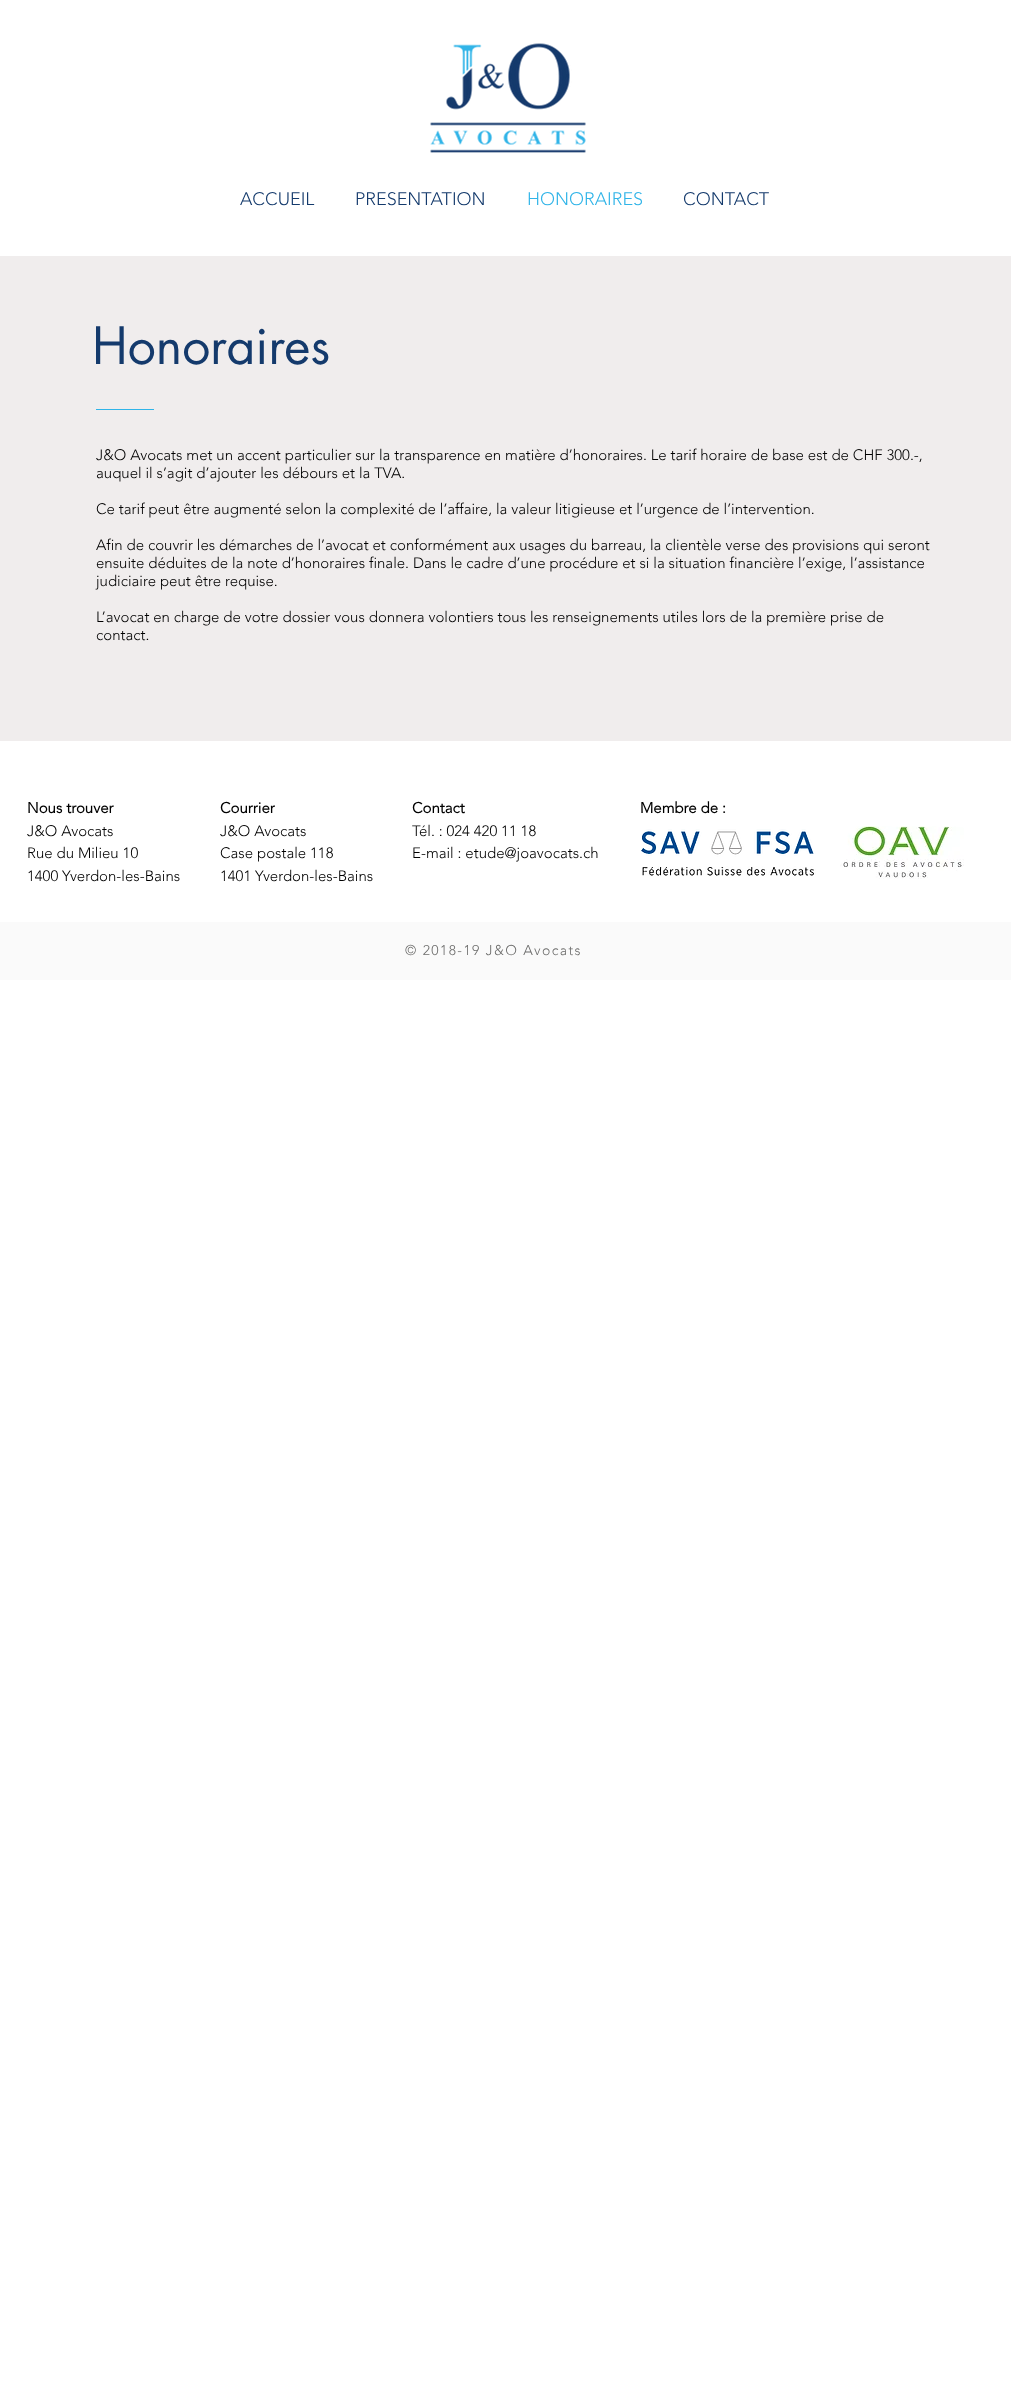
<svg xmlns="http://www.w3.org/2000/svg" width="1011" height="2402">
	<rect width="100%" height="100%" fill="#FFFFFF" />
	<image x="430" y="43" width="156" height="110" href="assets/img1.png" />
	<g font-family="'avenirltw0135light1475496'" font-size="18" font-weight="300" fill="#143A6C">
		<text x="240" y="205">ACCUEIL</text>
		<text x="355" y="205">PRESENTATION</text>
	</g>
	<text x="527" y="205" font-family="'avenirltw0135light1475496'" font-size="18" font-weight="300" fill="#30B4E8">HONORAIRES</text>
	<text x="683" y="205" font-family="'avenirltw0135light1475496'" font-size="18" font-weight="300" fill="#143A6C">CONTACT</text>
	<rect x="0" y="256" width="1011" height="485" fill="#F0EDED" />
	<text x="92" y="364" font-family="futura" font-size="50" fill="#143A6C">Honoraires</text>
	<rect x="96" y="409" width="58" height="1" fill="#30B4E8" />
	<g font-family="'avenirltw0135light1475496'" font-size="15" font-weight="300" fill="#000000">
		<text x="96" y="460">J&amp;O Avocats met un accent particulier sur la transparence en matière d’honoraires. Le tarif horaire de base est de CHF 300.-,</text>
		<text x="96" y="478">auquel il s’agit d’ajouter les débours et la TVA.</text>
		<text x="96" y="514">Ce tarif peut être augmenté selon la complexité de l’affaire, la valeur litigieuse et l’urgence de l’intervention.</text>
		<text x="96" y="550">Afin de couvrir les démarches de l’avocat et conformément aux usages du barreau, la clientèle verse des provisions qui seront</text>
		<text x="96" y="568">ensuite déduites de la note d’honoraires finale. Dans le cadre d’une procédure et si la situation financière l’exige, l’assistance</text>
		<text x="96" y="586">judiciaire peut être requise.</text>
		<text x="96" y="622">L’avocat en charge de votre dossier vous donnera volontiers tous les renseignements utiles lors de la première prise de</text>
		<text x="96" y="640">contact.</text>
	</g>
	<text x="27" y="813" font-family="'avenirltw0135light1475496'" font-size="15" font-weight="700" fill="#000000">Nous trouver</text>
	<g font-family="'avenirltw0135light1475496'" font-size="15" font-weight="300" fill="#000000">
		<text x="27" y="836">J&amp;O Avocats</text>
		<text x="27" y="858">Rue du Milieu 10</text>
		<text x="27" y="881">1400 Yverdon-les-Bains</text>
	</g>
	<text x="220" y="813" font-family="'avenirltw0135light1475496'" font-size="15" font-weight="700" fill="#000000">Courrier</text>
	<g font-family="'avenirltw0135light1475496'" font-size="15" font-weight="300" fill="#000000">
		<text x="220" y="836">J&amp;O Avocats</text>
		<text x="220" y="858">Case postale 118</text>
		<text x="220" y="881">1401 Yverdon-les-Bains</text>
	</g>
	<text x="412" y="813" font-family="'avenirltw0135light1475496'" font-size="15" font-weight="700" fill="#000000">Contact</text>
	<g font-family="'avenirltw0135light1475496'" font-size="15" font-weight="300" fill="#000000">
		<text x="412" y="836">Tél. : 024 420 11 18</text>
		<text x="412" y="858">E-mail : etude@joavocats.ch</text>
	</g>
	<text x="640" y="813" font-family="'avenirltw0135light1475496'" font-size="15" font-weight="700" fill="#000000">Membre de :</text>
	<image x="840" y="826" width="124" height="53" href="assets/img2.png" />
	<image x="641" y="829" width="175" height="47" href="assets/img3.png" />
	<rect x="0" y="922" width="1011" height="58" fill="#FAFAFA" />
	<text x="405" y="955" font-family="'avenirltw0135light1475496'" font-size="14" font-weight="300" letter-spacing="1.4" fill="#6E6E6D">© 2018-19 J&amp;O Avocats</text>
</svg>
